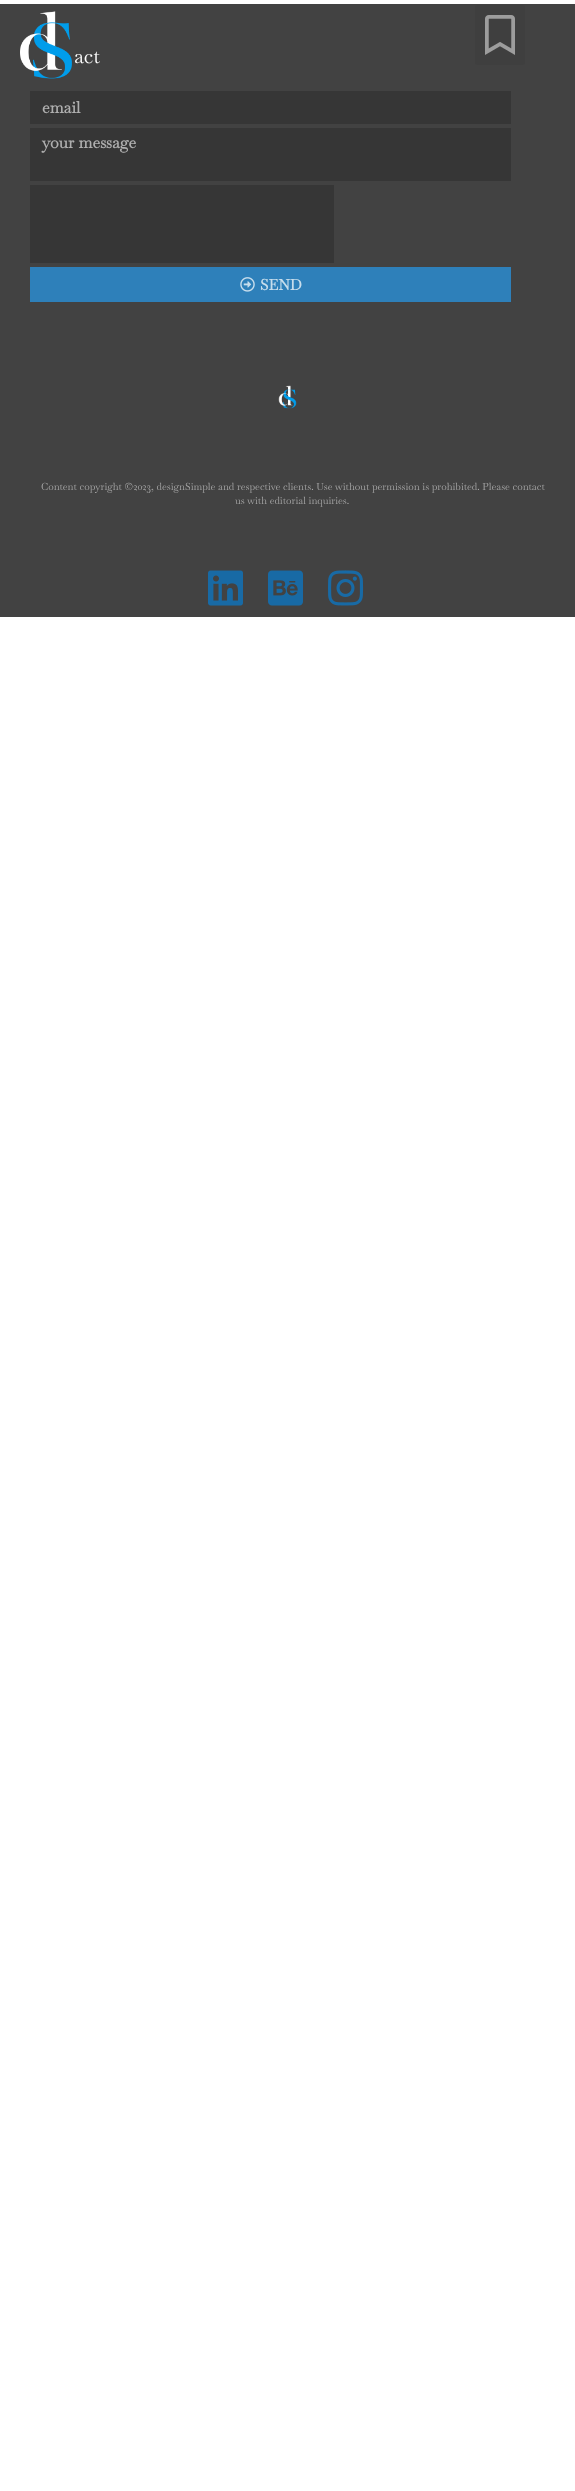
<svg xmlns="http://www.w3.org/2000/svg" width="575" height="2491">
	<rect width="100%" height="100%" fill="#FFFFFF" />
	<rect x="0" y="4" width="575" height="613" fill="#424242" />
	<image x="20" y="11" width="52" height="68" href="assets/img1.png" />
	<rect x="475" y="5" width="50" height="60" rx="3" fill="#3F3F3F" />
	<image x="485" y="15" width="30" height="40" href="assets/img2.png" />
	<text x="74" y="63" font-family="Baskervville" font-size="20" fill="#FFFFFF">act</text>
	<rect x="30" y="91" width="481" height="33" fill="#363636" />
	<text x="42" y="113" font-family="Baskervville" font-size="16" font-weight="700" fill="#AFAFAF">email</text>
	<rect x="30" y="128" width="481" height="53" fill="#363636" />
	<text x="42" y="148" font-family="Baskervville" font-size="16" font-weight="700" fill="#AFAFAF">your message</text>
	<rect x="30" y="185" width="304" height="78" fill="#363636" />
	<rect x="30" y="267" width="481" height="35" fill="#2E80BA" />
	<image x="240" y="277" width="15" height="15" href="assets/img3.png" />
	<text x="260" y="290" font-family="Baskervville" font-size="15" font-weight="700" fill="#C7DDEC">SEND</text>
	<image x="278" y="385" width="19" height="24" href="assets/img4.png" />
	<g font-family="Baskervville" font-size="10" fill="#A8A8A8">
		<text x="41" y="490">Content copyright ©2023, designSimple and respective clients. Use without permission is prohibited. Please contact</text>
		<text x="235" y="504">us with editorial inquiries.</text>
	</g>
	<image x="208" y="570" width="35" height="36" href="assets/img5.png" />
	<image x="268" y="570" width="35" height="36" href="assets/img6.png" />
	<image x="328" y="570" width="36" height="36" href="assets/img7.png" />
</svg>
